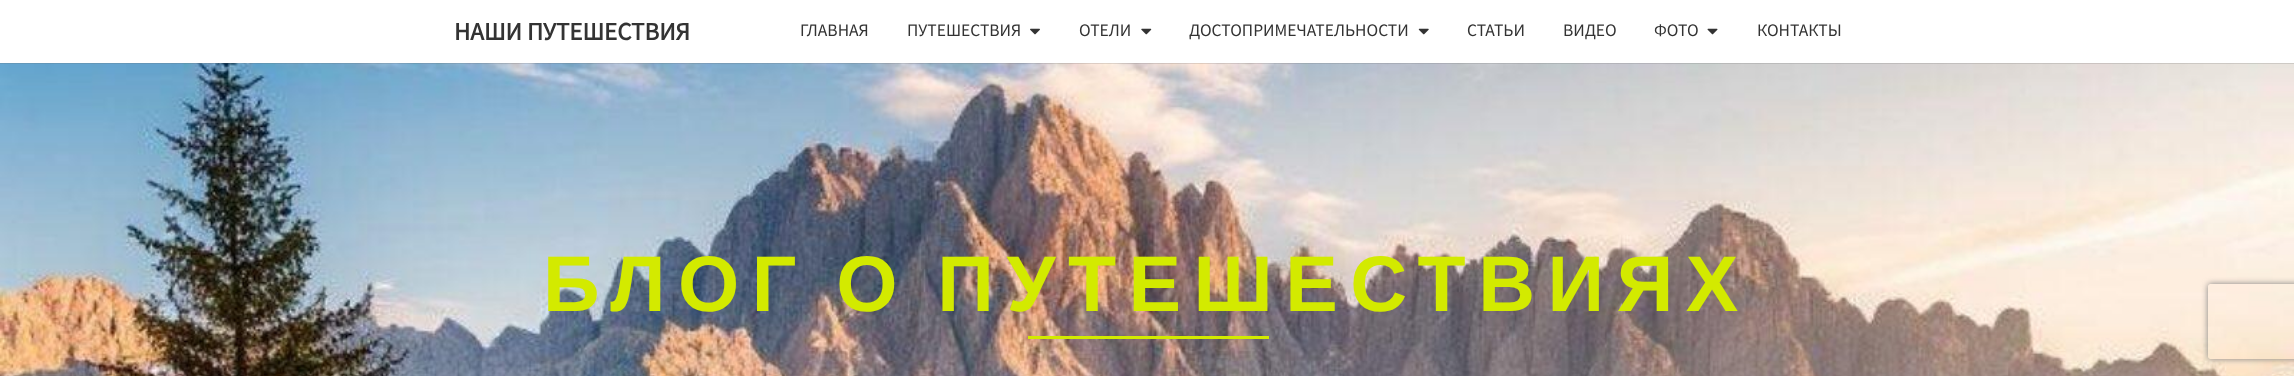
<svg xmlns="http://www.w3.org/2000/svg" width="2294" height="376">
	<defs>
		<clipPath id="clip1"><path d="M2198 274H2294V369H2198ZM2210.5 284H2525.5C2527 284 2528 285 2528 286.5V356.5C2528 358 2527 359 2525.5 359H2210.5C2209 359 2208 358 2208 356.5V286.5C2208 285 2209 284 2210.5 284Z" clip-rule="evenodd" /></clipPath>
	</defs>
	<rect width="100%" height="100%" fill="#FFFFFF" />
	<image x="0" y="63" width="2294" height="313" href="assets/img5.png" />
	<rect x="0" y="1" width="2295" height="63" fill="#646464" fill-opacity="0.2" filter="blur(0.5px)" />
	<rect x="0" y="0" width="2294" height="63" fill="#FFFFFF" />
	<text x="454" y="40" font-family="Source Sans Pro" font-size="25" font-weight="700" fill="#333333">НАШИ ПУТЕШЕСТВИЯ</text>
	<g font-family="Source Sans Pro" font-size="17.5" fill="#333333">
		<text x="800" y="36">ГЛАВНАЯ</text>
		<text x="907" y="36">ПУТЕШЕСТВИЯ</text>
	</g>
	<image x="1030" y="28" width="10" height="7" href="assets/img1.png" />
	<text x="1079" y="36" font-family="Source Sans Pro" font-size="17.5" fill="#333333">ОТЕЛИ</text>
	<image x="1141" y="28" width="11" height="7" href="assets/img2.png" />
	<text x="1189" y="36" font-family="Source Sans Pro" font-size="17.5" fill="#333333">ДОСТОПРИМЕЧАТЕЛЬНОСТИ</text>
	<image x="1418" y="28" width="11" height="7" href="assets/img3.png" />
	<g font-family="Source Sans Pro" font-size="17.5" fill="#333333">
		<text x="1467" y="36">СТАТЬИ</text>
		<text x="1563" y="36">ВИДЕО</text>
		<text x="1654" y="36">ФОТО</text>
	</g>
	<image x="1707" y="28" width="11" height="7" href="assets/img4.png" />
	<text x="1757" y="36" font-family="Source Sans Pro" font-size="17.5" fill="#333333">КОНТАКТЫ</text>
	<text x="543" y="311" word-spacing="-7" font-family="Liberation Sans" font-size="78.75" font-weight="700" letter-spacing="12.5" fill="#D3EA00">БЛОГ О ПУТЕШЕСТВИЯХ</text>
	<rect x="1028" y="336" width="241" height="3" fill="#D3EA00" />
	<g clip-path="url(#clip1)">
		<rect x="2208" y="284" width="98" height="75" rx="2.5" fill="#808080" filter="blur(3px)" />
	</g>
</svg>
